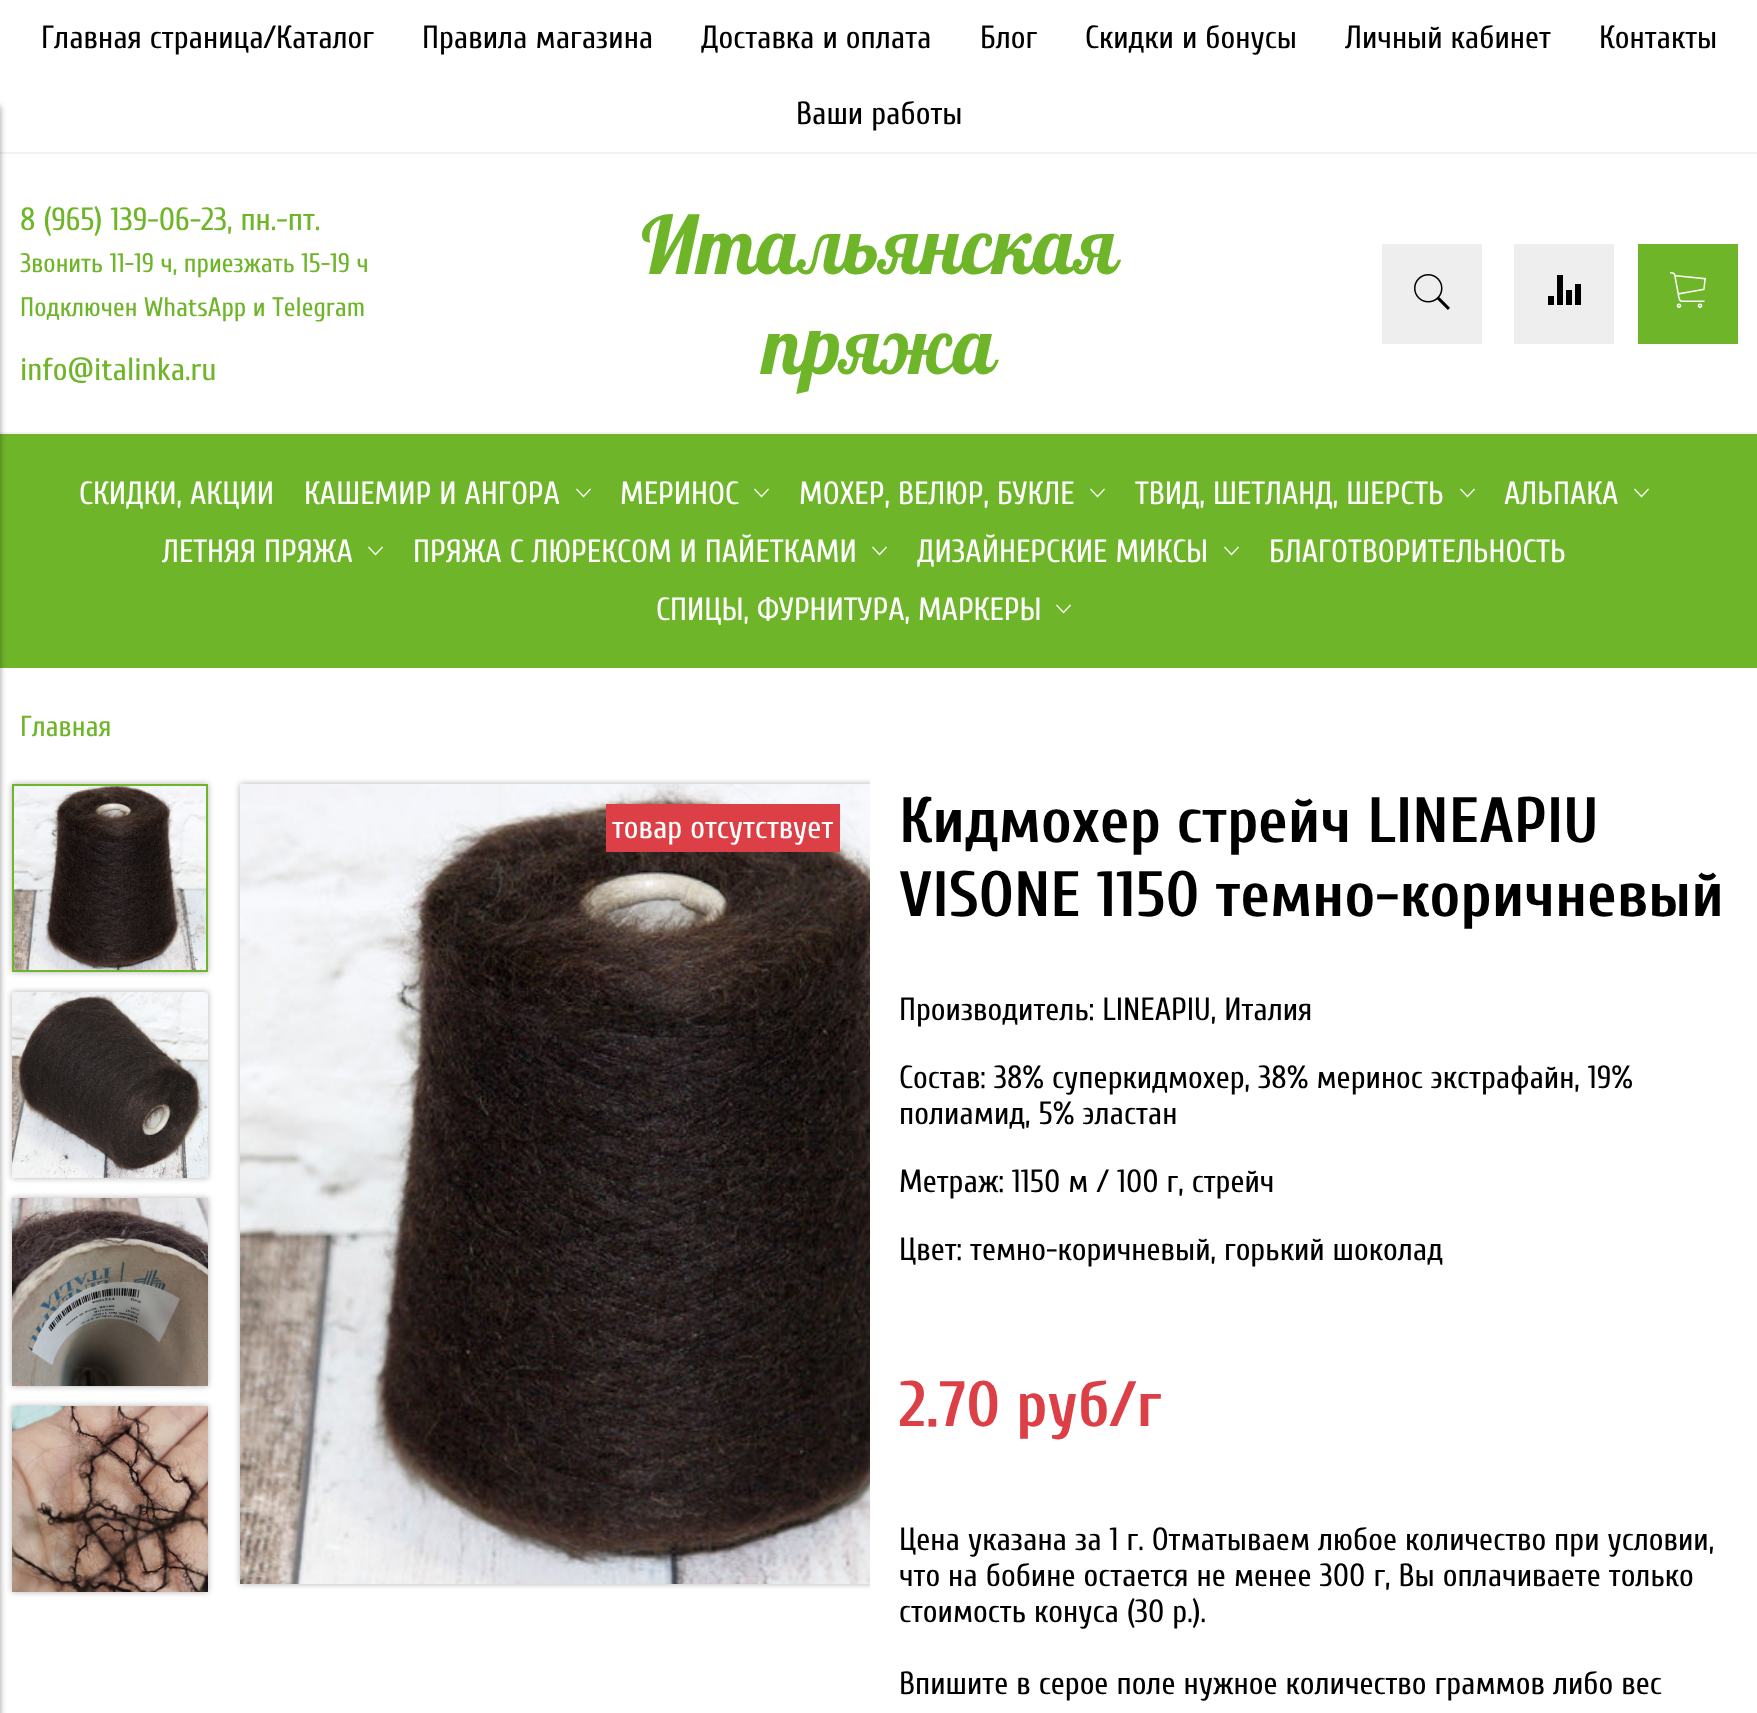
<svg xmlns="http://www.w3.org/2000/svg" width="1757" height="1713">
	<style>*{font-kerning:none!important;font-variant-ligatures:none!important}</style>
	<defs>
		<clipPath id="clip1"><rect x="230" y="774" width="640" height="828" /></clipPath>
	</defs>
	<rect width="100%" height="100%" fill="#FFFFFF" />
	<rect x="0" y="152" width="1757" height="2" fill="#F2F2F2" />
	<rect x="0" y="432" width="1757" height="2" fill="#F2F2F2" />
	<rect x="0" y="434" width="1757" height="234" fill="#6FB52A" />
	<rect x="-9" y="106" width="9" height="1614" fill="#000000" fill-opacity="0.4" filter="blur(3px)" />
	<g font-family="Cuprum" font-size="32" fill="#000000">
		<text x="41" y="48">Главная страница/Каталог</text>
		<text x="422" y="48">Правила магазина</text>
		<text x="701" y="48">Доставка и оплата</text>
		<text x="980" y="48">Блог</text>
		<text x="1085" y="48">Скидки и бонусы</text>
		<text x="1345" y="48">Личный кабинет</text>
		<text x="1599" y="48">Контакты</text>
		<text x="796" y="124">Ваши работы</text>
	</g>
	<text x="20" y="230" font-family="Cuprum" font-size="32" fill="#6FB52A">8 (965) 139-06-23, пн.-пт.</text>
	<g font-family="Cuprum" font-size="26.7" fill="#6FB52A">
		<text x="20" y="272">Звонить 11-19 ч, приезжать 15-19 ч</text>
		<text x="20" y="316">Подключен WhatsApp и Telegram</text>
	</g>
	<text x="20" y="380" font-family="Cuprum" font-size="32" fill="#6FB52A">info@italinka.ru</text>
	<g font-family="Lobster" font-size="80" fill="#6FB52A">
		<text x="641" y="274">Итальянская</text>
		<text x="763" y="374">пряжа</text>
	</g>
	<rect x="1382" y="244" width="100" height="100" fill="#EEEEEE" />
	<image x="1414" y="274" width="36" height="36" href="assets/img1.png" />
	<rect x="1514" y="244" width="100" height="100" fill="#EEEEEE" />
	<image x="1548" y="275" width="33" height="30" href="assets/img2.png" />
	<rect x="1638" y="244" width="100" height="100" fill="#6FB52A" />
	<image x="1670" y="272" width="36" height="36" href="assets/img3.png" />
	<g font-family="Cuprum" font-size="32" fill="#FFFFFF">
		<text x="79" y="504">СКИДКИ, АКЦИИ</text>
		<text x="304" y="504">КАШЕМИР И АНГОРА</text>
	</g>
	<image x="576" y="488" width="15" height="10" href="assets/img4.png" />
	<text x="620" y="504" font-family="Cuprum" font-size="32" fill="#FFFFFF">МЕРИНОС</text>
	<image x="754" y="488" width="15" height="10" href="assets/img4.png" />
	<text x="799" y="504" font-family="Cuprum" font-size="32" fill="#FFFFFF">МОХЕР, ВЕЛЮР, БУКЛЕ</text>
	<image x="1090" y="488" width="15" height="10" href="assets/img4.png" />
	<text x="1135" y="504" font-family="Cuprum" font-size="32" fill="#FFFFFF">ТВИД, ШЕТЛАНД, ШЕРСТЬ</text>
	<image x="1460" y="488" width="15" height="10" href="assets/img4.png" />
	<text x="1504" y="504" font-family="Cuprum" font-size="32" fill="#FFFFFF">АЛЬПАКА</text>
	<image x="1634" y="488" width="15" height="10" href="assets/img4.png" />
	<text x="162" y="562" font-family="Cuprum" font-size="32" fill="#FFFFFF">ЛЕТНЯЯ ПРЯЖА</text>
	<image x="368" y="546" width="15" height="10" href="assets/img4.png" />
	<text x="413" y="562" font-family="Cuprum" font-size="32" fill="#FFFFFF">ПРЯЖА С ЛЮРЕКСОМ И ПАЙЕТКАМИ</text>
	<image x="872" y="546" width="15" height="10" href="assets/img4.png" />
	<text x="917" y="562" font-family="Cuprum" font-size="32" fill="#FFFFFF">ДИЗАЙНЕРСКИЕ МИКСЫ</text>
	<image x="1224" y="546" width="15" height="10" href="assets/img4.png" />
	<g font-family="Cuprum" font-size="32" fill="#FFFFFF">
		<text x="1269" y="562">БЛАГОТВОРИТЕЛЬНОСТЬ</text>
		<text x="656" y="620">СПИЦЫ, ФУРНИТУРА, МАРКЕРЫ</text>
	</g>
	<image x="1056" y="604" width="15" height="10" href="assets/img4.png" />
	<text x="20" y="736" font-family="Cuprum" font-size="29" fill="#6FB52A">Главная</text>
	<rect x="12" y="784" width="196" height="188" fill="#000000" fill-opacity="0.3" filter="blur(3px)" />
	<rect x="13" y="785" width="194" height="186" fill="none" stroke="#6FB52A" stroke-width="2" />
	<image x="14" y="786" width="192" height="184" href="assets/img5.png" />
	<rect x="12" y="992" width="196" height="186" fill="#000000" fill-opacity="0.3" filter="blur(3px)" />
	<image x="12" y="992" width="196" height="186" href="assets/img6.png" />
	<rect x="12" y="1198" width="196" height="188" fill="#000000" fill-opacity="0.3" filter="blur(3px)" />
	<image x="12" y="1198" width="196" height="188" href="assets/img7.png" />
	<rect x="12" y="1406" width="196" height="186" fill="#000000" fill-opacity="0.3" filter="blur(3px)" />
	<image x="12" y="1406" width="196" height="186" href="assets/img8.png" />
	<g clip-path="url(#clip1)">
		<rect x="240" y="784" width="800" height="800" fill="#000000" fill-opacity="0.3" filter="blur(3px)" />
	</g>
	<image x="240" y="784" width="630" height="800" href="assets/img9.png" />
	<rect x="606" y="804" width="234" height="48" fill="#DD3F46" />
	<text x="612" y="838" font-family="Cuprum" font-size="32" fill="#FFFFFF">товар отсутствует</text>
	<g font-family="Cuprum" font-size="64" font-weight="700" fill="#000000">
		<text x="899" y="842">Кидмохер стрейч LINEAPIU</text>
		<text x="899" y="916">VISONE 1150 темно-коричневый</text>
	</g>
	<g font-family="Cuprum" font-size="32" fill="#000000">
		<text x="899" y="1020">Производитель: LINEAPIU, Италия</text>
		<text x="899" y="1088">Состав: 38% суперкидмохер, 38% меринос экстрафайн, 19%</text>
		<text x="899" y="1124">полиамид, 5% эластан</text>
		<text x="899" y="1192">Метраж: 1150 м / 100 г, стрейч</text>
		<text x="899" y="1260">Цвет: темно-коричневый, горький шоколад</text>
	</g>
	<text x="899" y="1426" font-family="Cuprum" font-size="64" font-weight="700" fill="#DD3F46">2.70 руб/г</text>
	<g font-family="Cuprum" font-size="32" fill="#000000">
		<text x="899" y="1550">Цена указана за 1 г. Отматываем любое количество при условии,</text>
		<text x="899" y="1586">что на бобине остается не менее 300 г, Вы оплачиваете только</text>
		<text x="899" y="1622">стоимость конуса (30 р.).</text>
		<text x="899" y="1694">Впишите в серое поле нужное количество граммов либо вес</text>
	</g>
</svg>
